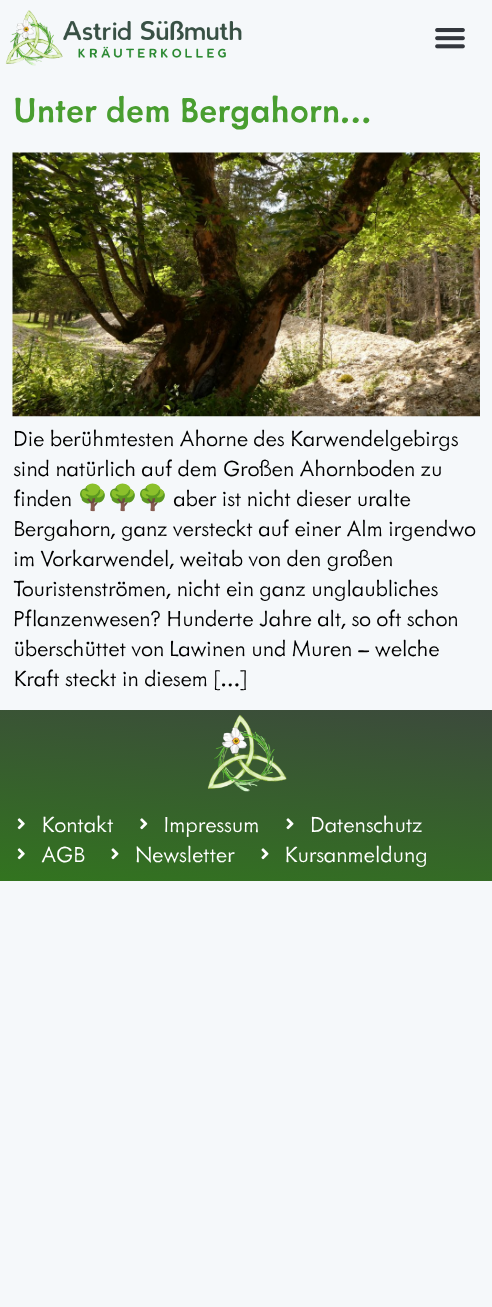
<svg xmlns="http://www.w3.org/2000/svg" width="492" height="1307">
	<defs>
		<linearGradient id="g1" gradientUnits="userSpaceOnUse" x1="258" y1="685" x2="235" y2="906"><stop offset="0" stop-color="#3C4A3C" /><stop offset="1" stop-color="#32741F" /></linearGradient>
	</defs>
	<rect width="100%" height="100%" fill="#F5F8FA" />
	<image x="5" y="10" width="237" height="56" href="assets/img1.png" />
	<image x="435" y="28" width="30" height="21" href="assets/img2.png" />
	<text x="13" y="122" font-family="'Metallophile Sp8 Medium'" font-size="40" font-weight="500" letter-spacing="-0.75" fill="#499E30">Unter dem Bergahorn…</text>
	<image x="12" y="152" width="468" height="265" href="assets/img3.png" />
	<g font-family="'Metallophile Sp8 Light'" font-size="25" font-weight="300" letter-spacing="-0.75" fill="#000000">
		<text x="13" y="446">Die berühmtesten Ahorne des Karwendelgebirgs</text>
		<text x="13" y="476">sind natürlich auf dem Großen Ahornboden zu</text>
		<text x="13" y="506">finden</text>
	</g>
	<text x="77" y="506" font-family="Noto Color Emoji" font-size="25" letter-spacing="-0.75" fill="#000000">🌳🌳🌳</text>
	<g font-family="'Metallophile Sp8 Light'" font-size="25" font-weight="300" letter-spacing="-0.75" fill="#000000">
		<text x="173" y="506">aber ist nicht dieser uralte</text>
		<text x="13" y="536">Bergahorn, ganz versteckt auf einer Alm irgendwo</text>
		<text x="13" y="566">im Vorkarwendel, weitab von den großen</text>
		<text x="13" y="596">Touristenströmen, nicht ein ganz unglaubliches</text>
		<text x="13" y="626">Pflanzenwesen? Hunderte Jahre alt, so oft schon</text>
		<text x="13" y="656">überschüttet von Lawinen und Muren – welche</text>
		<text x="13" y="686">Kraft steckt in diesem […]</text>
	</g>
	<rect x="0" y="710" width="492" height="171" fill="url(#g1)" />
	<image x="207" y="714" width="80" height="78" href="assets/img4.png" />
	<image x="17" y="818" width="8" height="12" href="assets/img5.png" />
	<text x="41" y="832" font-family="'Metallophile Sp8 Light'" font-size="25" font-weight="300" letter-spacing="-0.75" fill="#FFFFFF">Kontakt</text>
	<image x="140" y="818" width="8" height="12" href="assets/img6.png" />
	<text x="163" y="832" font-family="'Metallophile Sp8 Light'" font-size="25" font-weight="300" letter-spacing="-0.75" fill="#FFFFFF">Impressum</text>
	<image x="286" y="818" width="8" height="12" href="assets/img7.png" />
	<text x="310" y="832" font-family="'Metallophile Sp8 Light'" font-size="25" font-weight="300" letter-spacing="-0.75" fill="#FFFFFF">Datenschutz</text>
	<image x="17" y="848" width="8" height="12" href="assets/img8.png" />
	<text x="41" y="862" font-family="'Metallophile Sp8 Light'" font-size="25" font-weight="300" letter-spacing="-0.75" fill="#FFFFFF">AGB</text>
	<image x="111" y="848" width="8" height="12" href="assets/img9.png" />
	<text x="135" y="862" font-family="'Metallophile Sp8 Light'" font-size="25" font-weight="300" letter-spacing="-0.75" fill="#FFFFFF">Newsletter</text>
	<image x="261" y="848" width="8" height="12" href="assets/img10.png" />
	<text x="284" y="862" font-family="'Metallophile Sp8 Light'" font-size="25" font-weight="300" letter-spacing="-0.75" fill="#FFFFFF">Kursanmeldung</text>
</svg>
